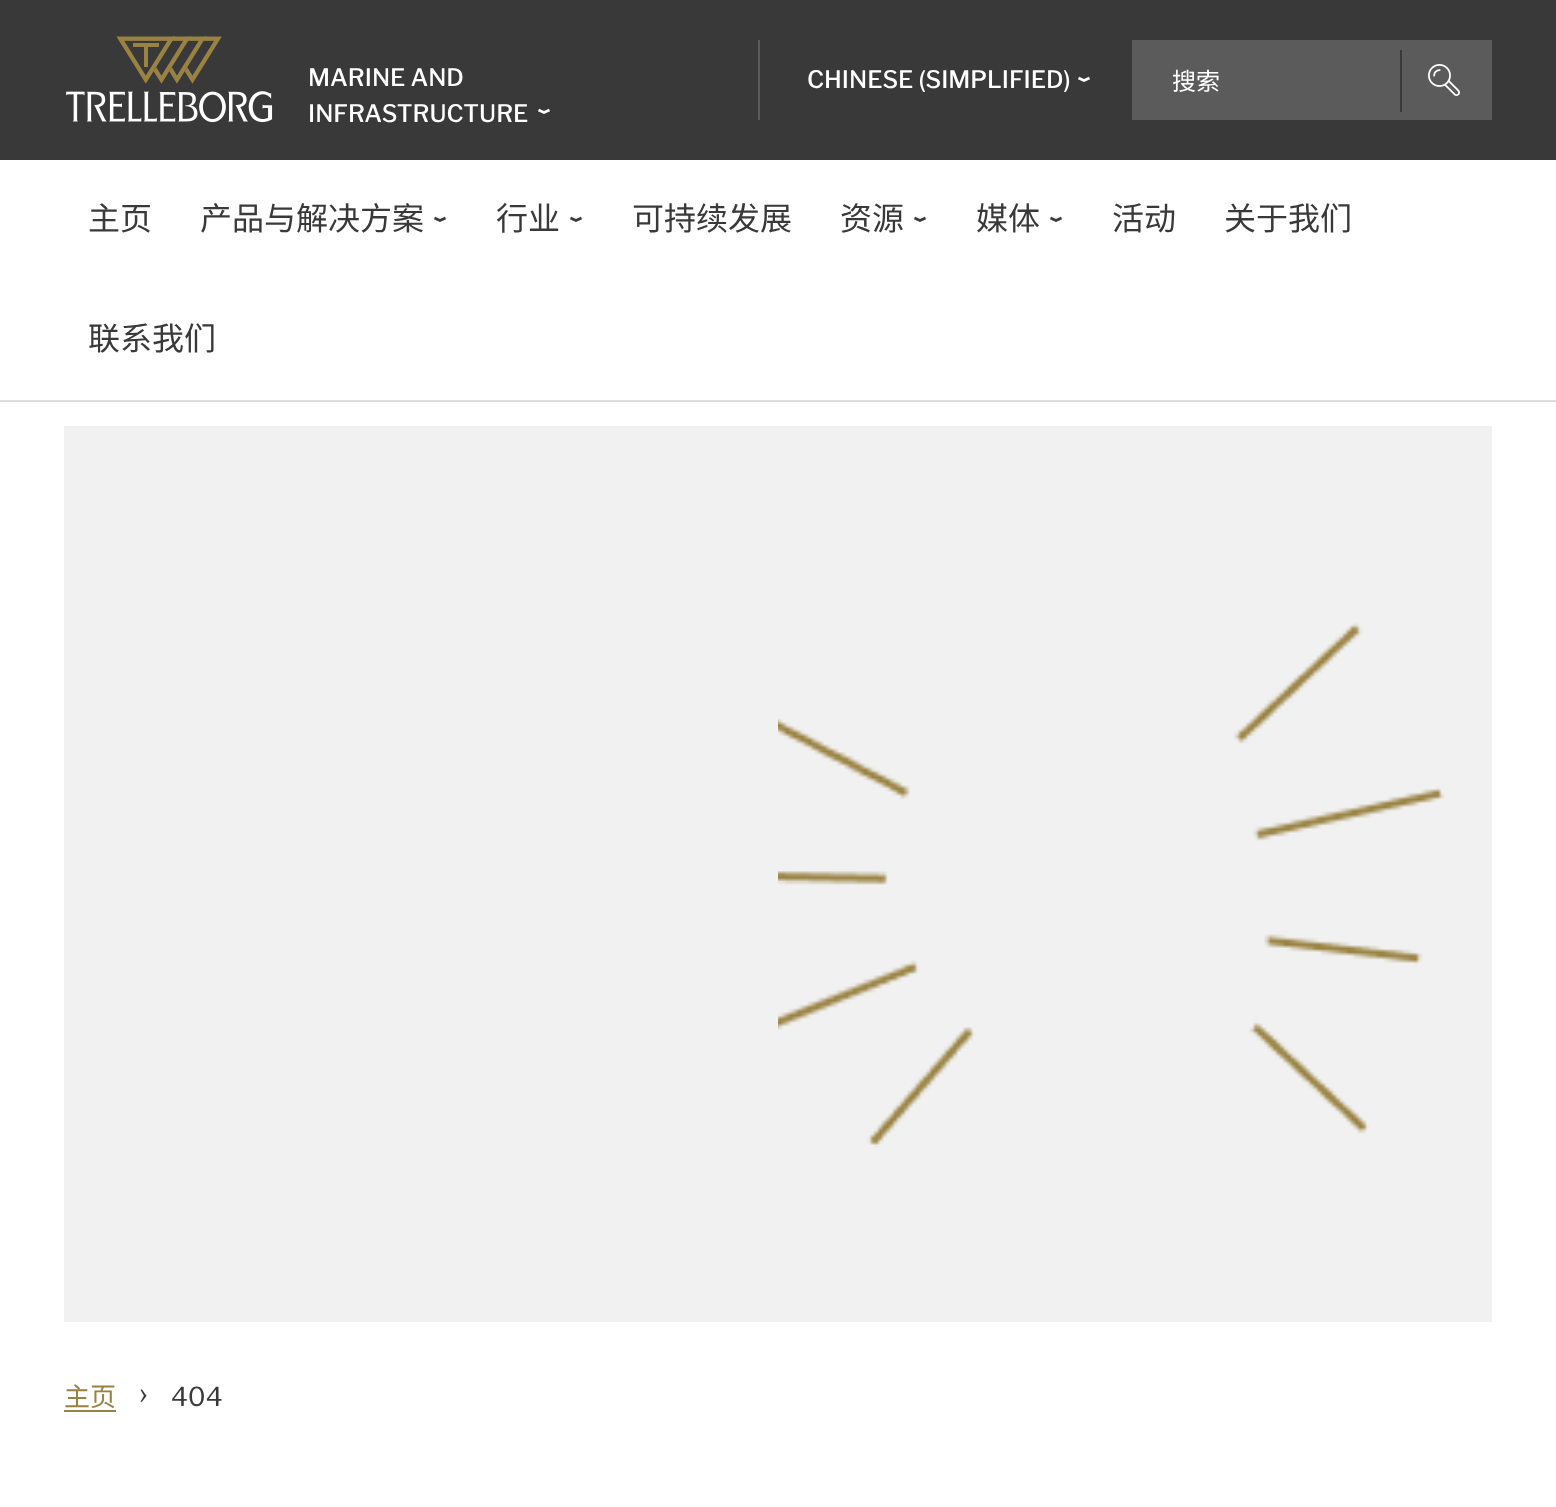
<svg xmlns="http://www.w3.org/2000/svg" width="1556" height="1507">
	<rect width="100%" height="100%" fill="#FFFFFF" />
	<rect x="0" y="0" width="1556" height="160" fill="#393939" />
	<image x="66" y="36" width="207" height="87" href="assets/img1.png" />
	<g font-family="Libre Franklin" font-size="24" font-weight="500" fill="#FFFFFF">
		<text x="308" y="86">MARINE AND</text>
		<text x="308" y="122">INFRASTRUCTURE</text>
	</g>
	<path d="M549.5 110L544 112.5L538.5 110" fill="none" stroke="#FFFFFF" stroke-width="2.7" />
	<rect x="758" y="40" width="2" height="80" fill="#5B5B5B" />
	<text x="807" y="88" font-family="Libre Franklin" font-size="24" font-weight="500" fill="#FFFFFF">CHINESE (SIMPLIFIED)</text>
	<path d="M1089.5 78L1084 80.5L1078.5 78" fill="none" stroke="#FFFFFF" stroke-width="2.7" />
	<rect x="1132" y="40" width="360" height="80" fill="#5B5B5B" />
	<text x="1172" y="90" font-family="Noto Sans CJK SC" font-size="24" fill="#FFFFFF">搜索</text>
	<rect x="1400" y="50" width="2" height="62" fill="#393939" />
	<image x="1428" y="64" width="32" height="32" href="assets/img2.png" />
	<rect x="0" y="400" width="1556" height="2" fill="#DDDDDD" />
	<g font-family="Noto Sans CJK SC" font-size="32" fill="#393939">
		<text x="88" y="230">主页</text>
		<text x="200" y="230">产品与解决方案</text>
	</g>
	<path d="M445.5 218L440 220.5L434.5 218" fill="none" stroke="#393939" stroke-width="2.7" />
	<text x="496" y="230" font-family="Noto Sans CJK SC" font-size="32" fill="#393939">行业</text>
	<path d="M581.5 218L576 220.5L570.5 218" fill="none" stroke="#393939" stroke-width="2.7" />
	<g font-family="Noto Sans CJK SC" font-size="32" fill="#393939">
		<text x="632" y="230">可持续发展</text>
		<text x="840" y="230">资源</text>
	</g>
	<path d="M925.5 218L920 220.5L914.5 218" fill="none" stroke="#393939" stroke-width="2.7" />
	<text x="976" y="230" font-family="Noto Sans CJK SC" font-size="32" fill="#393939">媒体</text>
	<path d="M1061.5 218L1056 220.5L1050.5 218" fill="none" stroke="#393939" stroke-width="2.7" />
	<g font-family="Noto Sans CJK SC" font-size="32" fill="#393939">
		<text x="1112" y="230">活动</text>
		<text x="1224" y="230">关于我们</text>
		<text x="88" y="350">联系我们</text>
	</g>
	<rect x="64" y="426" width="1428" height="896" fill="#F1F1F1" />
	<image x="778" y="622" width="667" height="526" href="assets/img3.png" />
	<text x="64" y="1406" font-family="Noto Sans CJK SC" font-size="26" fill="#998242">主页</text>
	<rect x="64" y="1410" width="52" height="2" fill="#998242" />
	<text x="139" y="1404" font-family="Libre Franklin" font-size="32" fill="#393939">›</text>
	<text x="171" y="1406" font-family="Libre Franklin" font-size="26" fill="#393939">404</text>
</svg>
